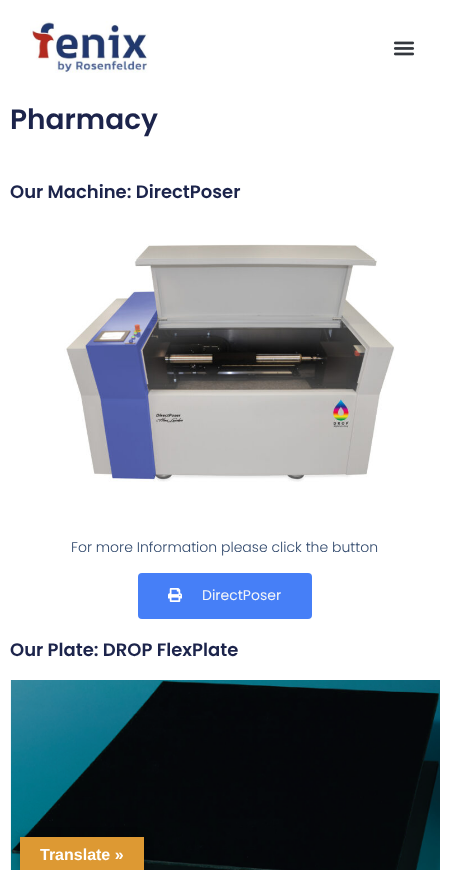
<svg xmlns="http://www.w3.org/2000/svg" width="450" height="870">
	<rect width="100%" height="100%" fill="#FFFFFF" />
	<image x="30" y="21" width="119" height="52" href="assets/img1.png" />
	<image x="393" y="41" width="22" height="15" href="assets/img2.png" />
	<text x="10" y="129" font-family="Poppins" font-size="28" font-weight="600" fill="#1C244B">Pharmacy</text>
	<text x="10" y="198" font-family="Poppins" font-size="18" font-weight="600" fill="#1C244B">Our Machine: DirectPoser</text>
	<image x="64" y="244" width="331" height="238" href="assets/img3.png" />
	<text x="71" y="552" font-family="Poppins" font-size="14" font-weight="300" fill="#324A6D">For more Information please click the button</text>
	<rect x="138" y="573" width="174" height="46" rx="4" fill="#467FF7" />
	<image x="168" y="588" width="14" height="14" href="assets/img4.png" />
	<text x="202" y="600" font-family="Poppins" font-size="14" fill="#F3F5F8">DirectPoser</text>
	<text x="10" y="656" font-family="Poppins" font-size="18" font-weight="600" fill="#1C244B">Our Plate: DROP FlexPlate</text>
	<image x="10" y="680" width="430" height="190" href="assets/img5.png" />
	<rect x="20" y="837" width="124" height="33" fill="#000000" fill-opacity="0.3" filter="blur(4.5px)" />
	<rect x="20" y="837" width="124" height="33" fill="#DD9933" />
	<text x="40" y="860" font-family="Liberation Sans" font-size="16" font-weight="700" fill="#FFFFFF">Translate »</text>
</svg>
